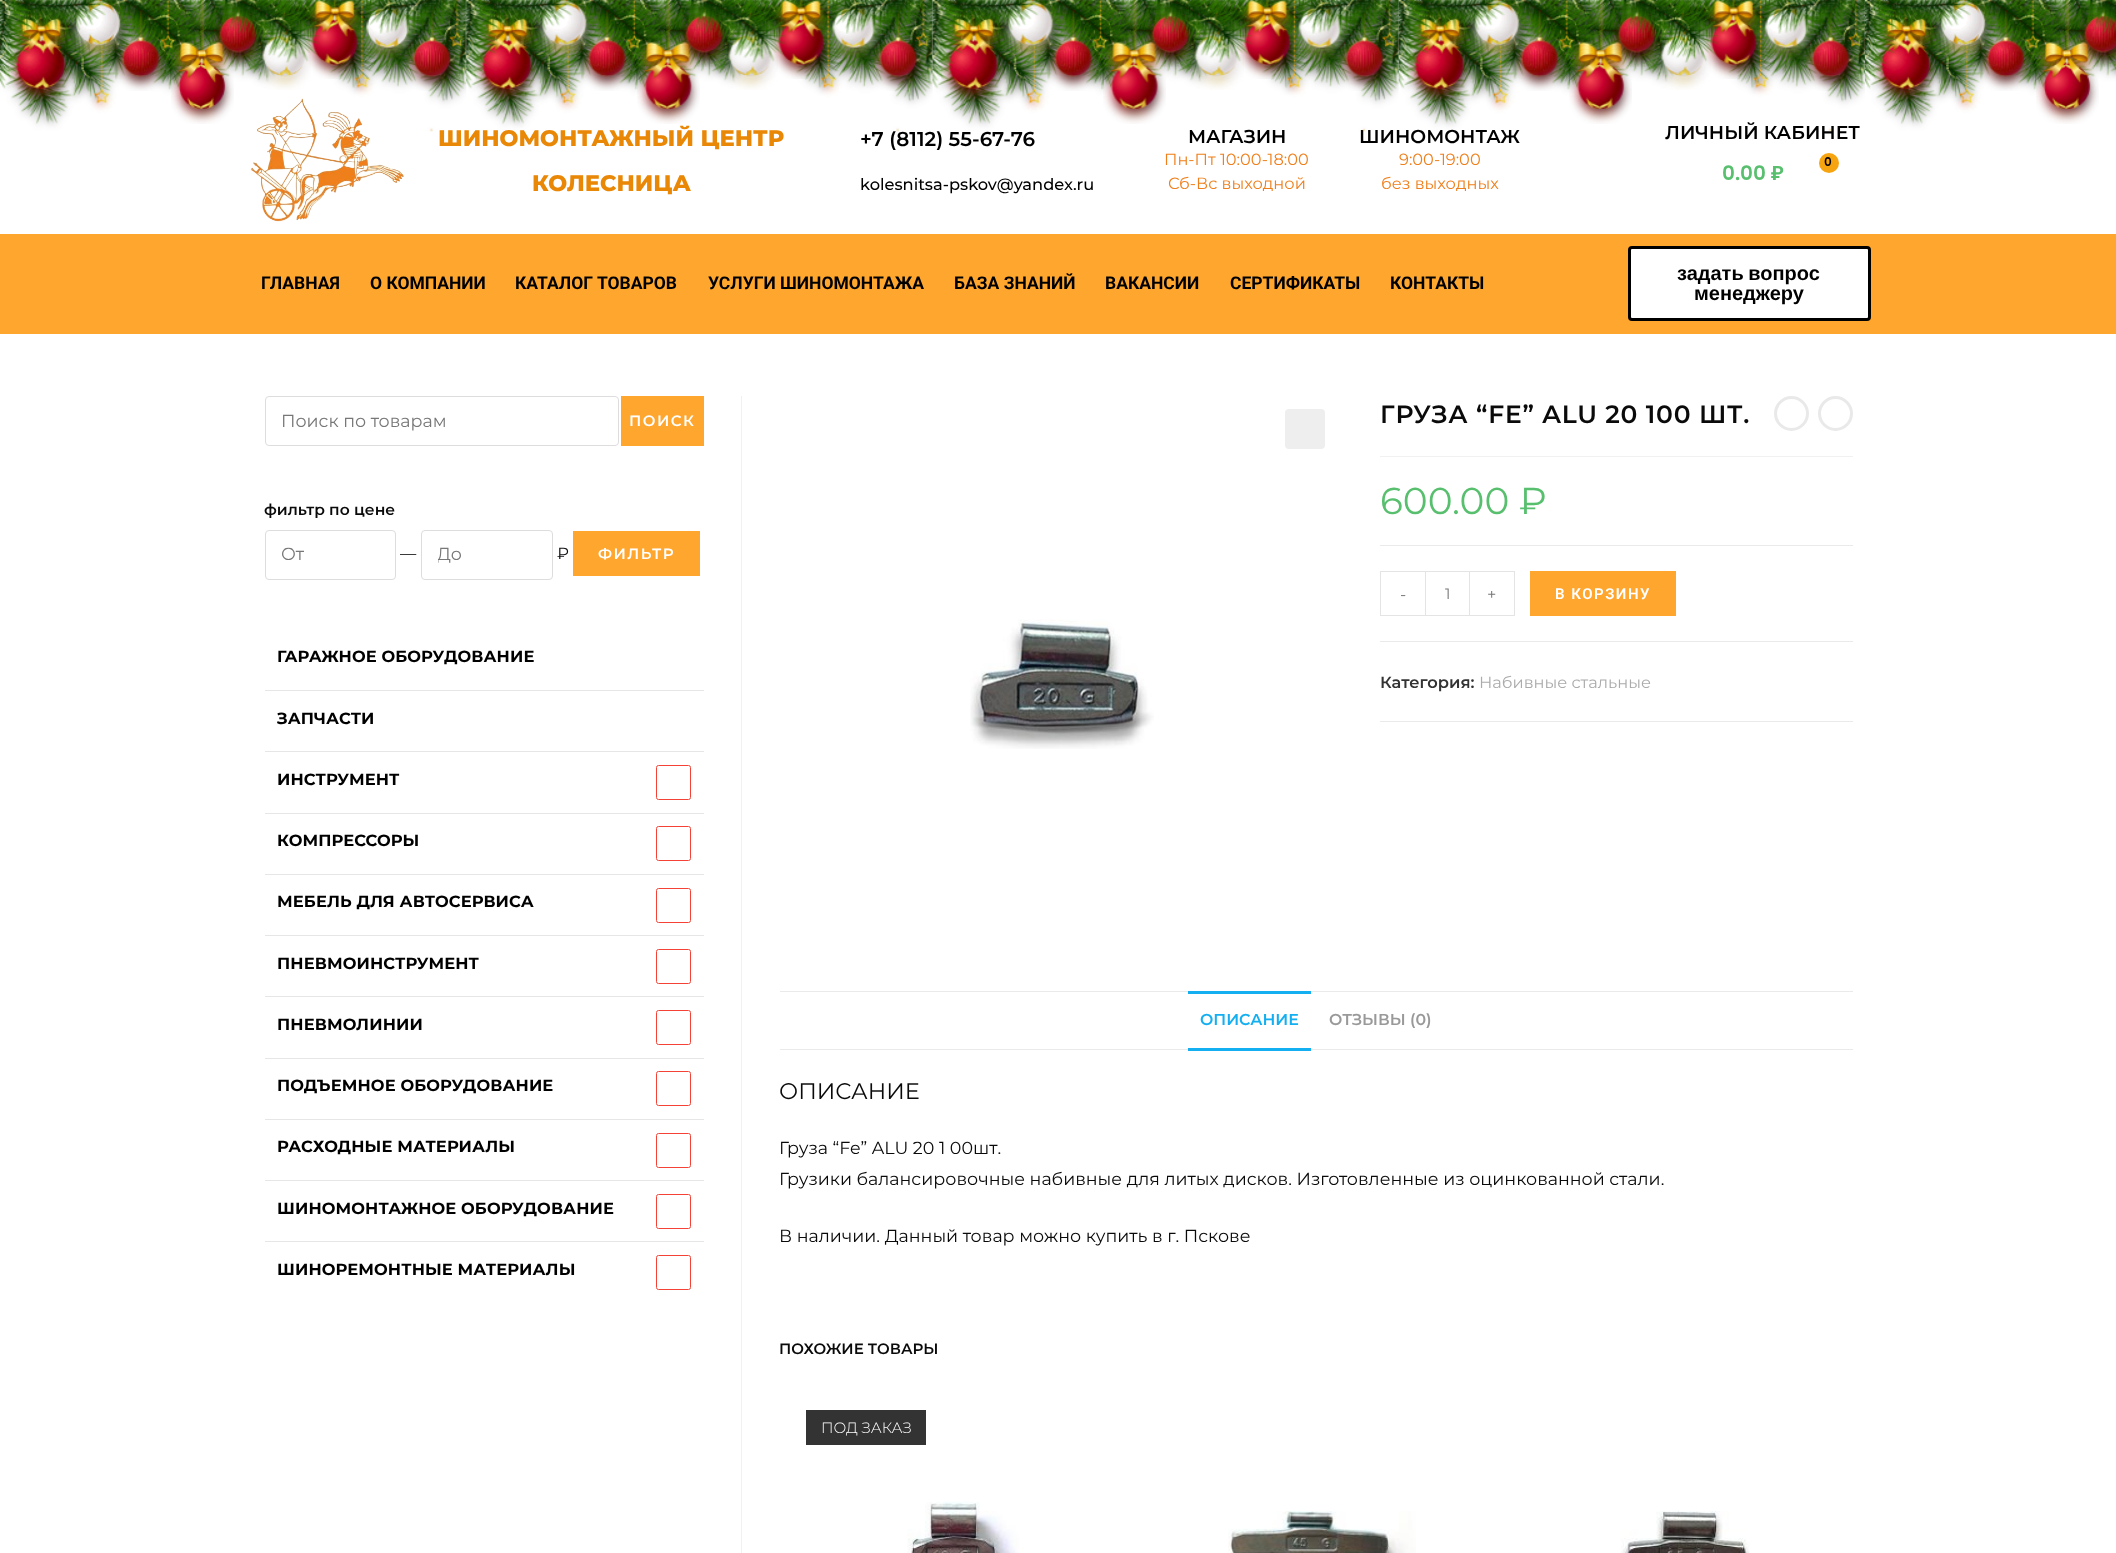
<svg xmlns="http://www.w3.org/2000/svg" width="2116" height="1553">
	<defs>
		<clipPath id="clip1"><rect x="438" y="543" width="98" height="22" /></clipPath>
	</defs>
	<rect width="100%" height="100%" fill="#FFFFFF" />
	<image x="250" y="98" width="154" height="124" href="assets/img70.png" />
	<text x="438" y="146" font-family="Montserrat" font-size="22.5" font-weight="800" fill="#E98706">ШИНОМОНТАЖНЫЙ ЦЕНТР</text>
	<text x="860" y="146" font-family="Montserrat" font-size="20" font-weight="600" fill="#000000">+7 (8112) 55-67-76</text>
	<g font-family="Montserrat" font-size="18.75" font-weight="600" fill="#000000">
		<text x="1188" y="143">МАГАЗИН</text>
		<text x="1359" y="143">ШИНОМОНТАЖ</text>
		<text x="1665" y="139">ЛИЧНЫЙ КАБИНЕТ</text>
	</g>
	<image x="0" y="0" width="2116" height="132" href="assets/img1.png" />
	<image x="8" y="0" width="65" height="102" href="assets/img3.png" />
	<image x="0" y="0" width="32" height="89" href="assets/img2.png" />
	<image x="67" y="0" width="62" height="58" href="assets/img5.png" />
	<image x="31" y="0" width="76" height="33" href="assets/img4.png" />
	<image x="171" y="0" width="63" height="124" href="assets/img6.png" />
	<image x="212" y="0" width="51" height="67" href="assets/img7.png" />
	<image x="255" y="7" width="56" height="83" href="assets/img13.png" />
	<image x="221" y="0" width="36" height="38" href="assets/img8.png" />
	<image x="304" y="0" width="61" height="79" href="assets/img10.png" />
	<image x="256" y="0" width="64" height="63" href="assets/img9.png" />
	<image x="359" y="0" width="57" height="61" href="assets/img11.png" />
	<image x="115" y="11" width="51" height="80" href="assets/img12.png" />
	<image x="406" y="12" width="52" height="79" href="assets/img16.png" />
	<image x="361" y="0" width="98" height="35" href="assets/img14.png" />
	<image x="458" y="0" width="9" height="86" href="assets/img15.png" />
	<image x="474" y="0" width="65" height="102" href="assets/img18.png" />
	<image x="466" y="0" width="33" height="89" href="assets/img17.png" />
	<image x="534" y="0" width="61" height="58" href="assets/img20.png" />
	<image x="497" y="0" width="77" height="33" href="assets/img19.png" />
	<image x="637" y="0" width="63" height="124" href="assets/img21.png" />
	<image x="678" y="0" width="51" height="67" href="assets/img22.png" />
	<image x="722" y="7" width="56" height="83" href="assets/img28.png" />
	<image x="687" y="0" width="36" height="38" href="assets/img23.png" />
	<image x="771" y="0" width="60" height="79" href="assets/img25.png" />
	<image x="722" y="0" width="64" height="63" href="assets/img24.png" />
	<image x="825" y="0" width="57" height="61" href="assets/img26.png" />
	<image x="581" y="11" width="51" height="80" href="assets/img27.png" />
	<image x="873" y="12" width="51" height="79" href="assets/img31.png" />
	<image x="827" y="0" width="99" height="35" href="assets/img29.png" />
	<image x="924" y="0" width="9" height="86" href="assets/img30.png" />
	<image x="941" y="0" width="64" height="102" href="assets/img33.png" />
	<image x="932" y="0" width="33" height="89" href="assets/img32.png" />
	<image x="1000" y="0" width="61" height="58" href="assets/img35.png" />
	<image x="963" y="0" width="77" height="33" href="assets/img34.png" />
	<image x="1103" y="0" width="63" height="124" href="assets/img36.png" />
	<image x="1145" y="0" width="51" height="67" href="assets/img37.png" />
	<image x="1188" y="7" width="56" height="83" href="assets/img43.png" />
	<image x="1153" y="0" width="37" height="39" href="assets/img38.png" />
	<image x="1237" y="0" width="61" height="79" href="assets/img40.png" />
	<image x="1188" y="0" width="64" height="63" href="assets/img39.png" />
	<image x="1292" y="0" width="57" height="61" href="assets/img41.png" />
	<image x="1047" y="11" width="51" height="80" href="assets/img42.png" />
	<image x="1339" y="12" width="51" height="79" href="assets/img46.png" />
	<image x="1294" y="0" width="98" height="35" href="assets/img44.png" />
	<image x="1390" y="0" width="9" height="86" href="assets/img45.png" />
	<image x="1407" y="0" width="65" height="102" href="assets/img48.png" />
	<image x="1398" y="0" width="33" height="89" href="assets/img47.png" />
	<image x="1466" y="0" width="61" height="58" href="assets/img50.png" />
	<image x="1429" y="0" width="77" height="33" href="assets/img49.png" />
	<image x="1569" y="0" width="63" height="124" href="assets/img51.png" />
	<image x="1611" y="0" width="51" height="67" href="assets/img52.png" />
	<image x="1654" y="7" width="57" height="83" href="assets/img58.png" />
	<image x="1620" y="0" width="36" height="38" href="assets/img53.png" />
	<image x="1703" y="0" width="61" height="79" href="assets/img55.png" />
	<image x="1655" y="0" width="63" height="63" href="assets/img54.png" />
	<image x="1758" y="0" width="57" height="61" href="assets/img56.png" />
	<image x="1513" y="11" width="52" height="80" href="assets/img57.png" />
	<image x="1805" y="12" width="52" height="79" href="assets/img61.png" />
	<image x="1760" y="0" width="98" height="35" href="assets/img59.png" />
	<image x="1857" y="0" width="8" height="86" href="assets/img60.png" />
	<image x="1873" y="0" width="65" height="102" href="assets/img63.png" />
	<image x="1865" y="0" width="32" height="89" href="assets/img62.png" />
	<image x="1932" y="0" width="62" height="58" href="assets/img65.png" />
	<image x="1896" y="0" width="76" height="33" href="assets/img64.png" />
	<image x="2036" y="0" width="63" height="124" href="assets/img66.png" />
	<image x="2077" y="0" width="39" height="67" href="assets/img67.png" />
	<image x="1980" y="11" width="51" height="80" href="assets/img68.png" />
	<image x="2086" y="0" width="30" height="35" href="assets/img69.png" />
	<text x="532" y="191" font-family="Montserrat" font-size="22.5" font-weight="800" fill="#E98706">КОЛЕСНИЦА</text>
	<text x="860" y="190" font-family="Montserrat" font-size="16.25" font-weight="500" fill="#000000">kolesnitsa-pskov@yandex.ru</text>
	<g font-family="Montserrat" font-size="16.25" fill="#EF7F1B">
		<text x="1164" y="165">Пн-Пт 10:00-18:00</text>
		<text x="1168" y="189">Сб-Вс выходной</text>
		<text x="1399" y="165">9:00-19:00</text>
		<text x="1381" y="189">без выходных</text>
	</g>
	<circle cx="1829" cy="163" r="10" fill="#F7A411" />
	<text x="1824" y="166" font-family="Poppins" font-size="12" font-weight="600" fill="#000000">0</text>
	<text x="1722" y="180" font-family="Poppins" font-size="20" font-weight="600" fill="#57BF6D">0.00 ₽</text>
	<rect x="0" y="234" width="2116" height="100" fill="#FFA62E" />
	<g font-family="Roboto" font-size="17.5" font-weight="700" fill="#000000">
		<text x="261" y="289">ГЛАВНАЯ</text>
		<text x="370" y="289">О КОМПАНИИ</text>
		<text x="515" y="289">КАТАЛОГ ТОВАРОВ</text>
		<text x="708" y="289">УСЛУГИ ШИНОМОНТАЖА</text>
		<text x="954" y="289">БАЗА ЗНАНИЙ</text>
		<text x="1105" y="289">ВАКАНСИИ</text>
		<text x="1230" y="289">СЕРТИФИКАТЫ</text>
		<text x="1390" y="289">КОНТАКТЫ</text>
	</g>
	<rect x="1629.5" y="247.5" width="240" height="72" rx="2.5" fill="#FFFFFF" stroke="#000000" stroke-width="3" />
	<g font-family="Liberation Sans" font-size="20" font-weight="700" fill="#000000">
		<text x="1677" y="280" word-spacing="-1">задать вопрос</text>
		<text x="1694" y="300">менеджеру</text>
	</g>
	<rect x="265.5" y="396.5" width="353" height="49" rx="3.5" fill="none" stroke="#DDDDDD" />
	<text x="281" y="427" font-family="Montserrat" font-size="17.5" fill="#777777">Поиск по товарам</text>
	<rect x="621" y="396" width="83" height="50" fill="#FFA62E" />
	<text x="629" y="426" font-family="Montserrat" font-size="15" font-weight="600" letter-spacing="1.5" fill="#FFFFFF">ПОИСК</text>
	<text x="264" y="515" font-family="Montserrat" font-size="15.5" font-weight="600" fill="#0A0A0A">фильтр по цене</text>
	<rect x="265.5" y="530.5" width="130" height="49" rx="3.5" fill="none" stroke="#DDDDDD" />
	<text x="281" y="560" font-family="Montserrat" font-size="17.5" fill="#777777">От</text>
	<text x="400" y="559" font-family="Montserrat" font-size="16.25" fill="#0A0A0A">—</text>
	<rect x="421.5" y="530.5" width="131" height="49" rx="3.5" fill="none" stroke="#DDDDDD" />
	<g clip-path="url(#clip1)">
		<text x="437" y="560" font-family="Montserrat" font-size="17.5" fill="#777777">До</text>
	</g>
	<text x="557" y="559" font-family="Montserrat" font-size="16.25" fill="#0A0A0A">₽</text>
	<rect x="573" y="531" width="127" height="45" fill="#FFA62E" />
	<text x="598" y="559" font-family="Montserrat" font-size="15" font-weight="600" letter-spacing="1.5" fill="#FFFFFF">ФИЛЬТР</text>
	<rect x="265" y="690" width="439" height="1" fill="#E6E6E6" />
	<text x="277" y="662" font-family="Montserrat" font-size="16.25" font-weight="700" letter-spacing="0.1" fill="#000000">ГАРАЖНОЕ ОБОРУДОВАНИЕ</text>
	<rect x="265" y="751" width="439" height="1" fill="#E6E6E6" />
	<text x="277" y="724" font-family="Montserrat" font-size="16.25" font-weight="700" letter-spacing="0.1" fill="#000000">ЗАПЧАСТИ</text>
	<rect x="265" y="813" width="439" height="1" fill="#E6E6E6" />
	<text x="277" y="785" font-family="Montserrat" font-size="16.25" font-weight="700" letter-spacing="0.1" fill="#000000">ИНСТРУМЕНТ</text>
	<rect x="656.5" y="765.5" width="34" height="34" rx="2" fill="none" stroke="#F44336" />
	<rect x="265" y="874" width="439" height="1" fill="#E6E6E6" />
	<text x="277" y="846" font-family="Montserrat" font-size="16.25" font-weight="700" letter-spacing="0.1" fill="#000000">КОМПРЕССОРЫ</text>
	<rect x="656.5" y="826.5" width="34" height="34" rx="2" fill="none" stroke="#F44336" />
	<rect x="265" y="935" width="439" height="1" fill="#E6E6E6" />
	<text x="277" y="907" font-family="Montserrat" font-size="16.25" font-weight="700" letter-spacing="0.1" fill="#000000">МЕБЕЛЬ ДЛЯ АВТОСЕРВИСА</text>
	<rect x="656.5" y="888.5" width="34" height="34" rx="2" fill="none" stroke="#F44336" />
	<rect x="265" y="996" width="439" height="1" fill="#E6E6E6" />
	<text x="277" y="969" font-family="Montserrat" font-size="16.25" font-weight="700" letter-spacing="0.1" fill="#000000">ПНЕВМОИНСТРУМЕНТ</text>
	<rect x="656.5" y="949.5" width="34" height="34" rx="2" fill="none" stroke="#F44336" />
	<rect x="265" y="1058" width="439" height="1" fill="#E6E6E6" />
	<text x="277" y="1030" font-family="Montserrat" font-size="16.25" font-weight="700" letter-spacing="0.1" fill="#000000">ПНЕВМОЛИНИИ</text>
	<rect x="656.5" y="1010.5" width="34" height="34" rx="2" fill="none" stroke="#F44336" />
	<rect x="265" y="1119" width="439" height="1" fill="#E6E6E6" />
	<text x="277" y="1091" font-family="Montserrat" font-size="16.25" font-weight="700" letter-spacing="0.1" fill="#000000">ПОДЪЕМНОЕ ОБОРУДОВАНИЕ</text>
	<rect x="656.5" y="1071.5" width="34" height="34" rx="2" fill="none" stroke="#F44336" />
	<rect x="265" y="1180" width="439" height="1" fill="#E6E6E6" />
	<text x="277" y="1152" font-family="Montserrat" font-size="16.25" font-weight="700" letter-spacing="0.1" fill="#000000">РАСХОДНЫЕ МАТЕРИАЛЫ</text>
	<rect x="656.5" y="1133.5" width="34" height="34" rx="2" fill="none" stroke="#F44336" />
	<rect x="265" y="1241" width="439" height="1" fill="#E6E6E6" />
	<text x="277" y="1214" font-family="Montserrat" font-size="16.25" font-weight="700" letter-spacing="0.1" fill="#000000">ШИНОМОНТАЖНОЕ ОБОРУДОВАНИЕ</text>
	<rect x="656.5" y="1194.5" width="34" height="34" rx="2" fill="none" stroke="#F44336" />
	<text x="277" y="1275" font-family="Montserrat" font-size="16.25" font-weight="700" letter-spacing="0.1" fill="#000000">ШИНОРЕМОНТНЫЕ МАТЕРИАЛЫ</text>
	<rect x="656.5" y="1255.5" width="34" height="34" rx="2" fill="none" stroke="#F44336" />
	<rect x="741" y="396" width="1" height="1157" fill="#F1F1F1" />
	<rect x="1285" y="409" width="40" height="40" rx="4" fill="#EEEEEE" />
	<image x="970" y="619" width="184" height="130" href="assets/img71.png" />
	<rect x="1380" y="456" width="473" height="1" fill="#F1F1F1" />
	<text x="1380" y="423" font-family="Montserrat" font-size="25" font-weight="600" letter-spacing="0.75" fill="#0A0A0A">ГРУЗА “FE” ALU 20 100 ШТ.</text>
	<text x="1380" y="514" font-family="Montserrat" font-size="37.5" fill="#57BF6D">600.00 ₽</text>
	<rect x="1380" y="545" width="473" height="1" fill="#EAEAEA" />
	<rect x="1380" y="641" width="473" height="1" fill="#EAEAEA" />
	<rect x="1380" y="571" width="45" height="1" fill="#E4E4E4" />
	<rect x="1380" y="615" width="45" height="1" fill="#E4E4E4" />
	<rect x="1380" y="571" width="1" height="45" fill="#E4E4E4" />
	<text x="1400" y="600" font-family="Montserrat" font-size="16.25" fill="#777777">-</text>
	<rect x="1425.5" y="571.5" width="44" height="44" fill="none" stroke="#E4E4E4" />
	<text x="1445" y="599" font-family="Montserrat" font-size="15" fill="#777777">1</text>
	<rect x="1470" y="571" width="45" height="1" fill="#E4E4E4" />
	<rect x="1514" y="571" width="1" height="45" fill="#E4E4E4" />
	<rect x="1470" y="615" width="45" height="1" fill="#E4E4E4" />
	<text x="1487" y="600" font-family="Montserrat" font-size="16.25" fill="#777777">+</text>
	<rect x="1530" y="571" width="146" height="45" fill="#FFA62E" />
	<text x="1555" y="599" font-family="Roboto" font-size="15" font-weight="600" letter-spacing="1.5" fill="#FFFFFF">В КОРЗИНУ</text>
	<rect x="1380" y="721" width="473" height="1" fill="#EAEAEA" />
	<text x="1380" y="688" font-family="Montserrat" font-size="16.25" font-weight="600" fill="#333333">Категория:</text>
	<text x="1479" y="688" font-family="Montserrat" font-size="16.25" fill="#ABABAB">Набивные стальные</text>
	<circle cx="1791.5" cy="413.5" r="16" fill="none" stroke="#E9E9E9" stroke-width="3" />
	<circle cx="1835.5" cy="413.5" r="16" fill="none" stroke="#E9E9E9" stroke-width="3" />
	<rect x="780" y="991" width="1073" height="1" fill="#EAEAEA" />
	<rect x="780" y="1049" width="1073" height="1" fill="#EAEAEA" />
	<rect x="1188" y="991" width="123" height="3" fill="#13AFF0" />
	<rect x="1188" y="1048" width="123" height="3" fill="#13AFF0" />
	<text x="1200" y="1025" font-family="Montserrat" font-size="15.75" font-weight="600" fill="#13AFF0">ОПИСАНИЕ</text>
	<text x="1329" y="1025" font-family="Montserrat" font-size="15.75" font-weight="600" fill="#999999">ОТЗЫВЫ (0)</text>
	<text x="779" y="1099" font-family="Montserrat" font-size="22.5" fill="#0A0A0A">ОПИСАНИЕ</text>
	<g font-family="Montserrat" font-size="17.5" fill="#0A0A0A">
		<text x="779" y="1154">Груза “Fe” ALU 20 1 00шт.</text>
		<text x="779" y="1185">Грузики балансировочные набивные для литых дисков. Изготовленные из оцинкованной стали.</text>
		<text x="779" y="1242">В наличии. Данный товар можно купить в г. Пскове</text>
	</g>
	<text x="779" y="1354" font-family="Montserrat" font-size="15" font-weight="600" fill="#0A0A0A">ПОХОЖИЕ ТОВАРЫ</text>
	<rect x="806" y="1410" width="120" height="35" fill="#333333" />
	<text x="821" y="1433" font-family="Montserrat" font-size="15" font-weight="300" fill="#FFFFFF">ПОД ЗАКАЗ</text>
	<image x="907" y="1501" width="117" height="52" href="assets/img72.png" />
	<image x="1228" y="1511" width="188" height="42" href="assets/img73.png" />
	<image x="1621" y="1511" width="129" height="42" href="assets/img74.png" />
</svg>
